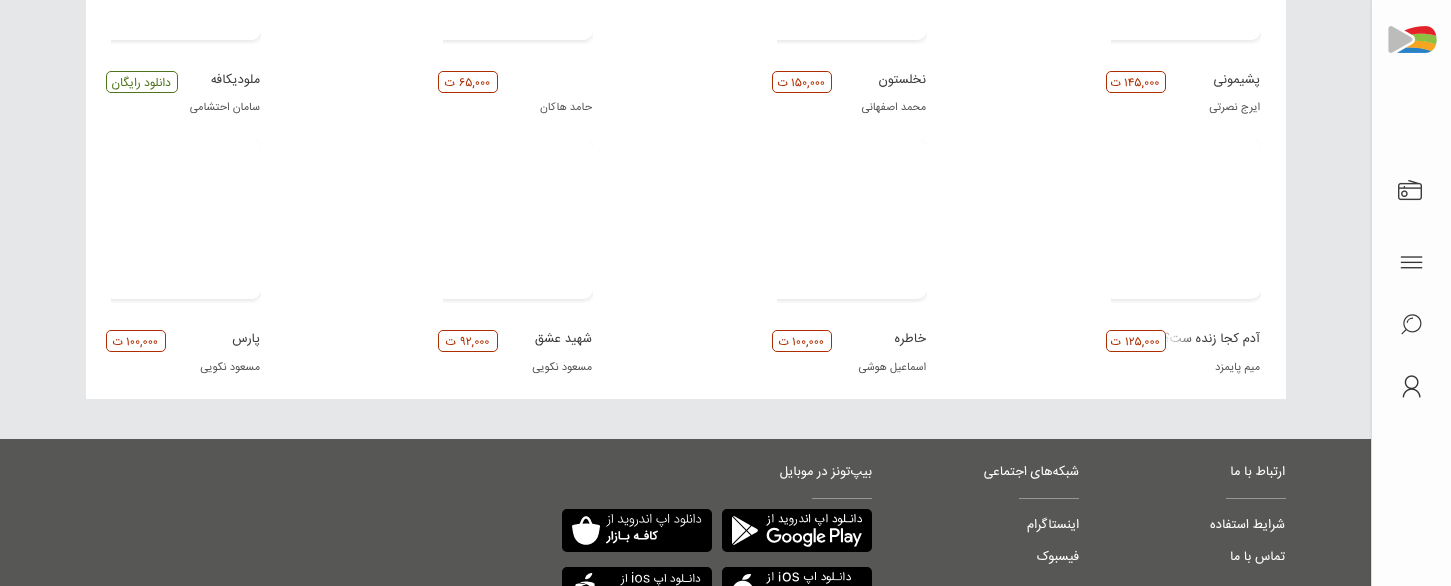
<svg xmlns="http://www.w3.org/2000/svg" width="1451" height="586">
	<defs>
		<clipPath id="clip1"><rect x="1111" y="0" width="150" height="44" /></clipPath>
		<clipPath id="clip2"><path d="M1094 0H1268V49H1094ZM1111-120H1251C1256.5-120 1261-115.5 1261-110V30C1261 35.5 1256.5 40 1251 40H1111C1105.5 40 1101 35.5 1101 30V-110C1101-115.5 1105.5-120 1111-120Z" clip-rule="evenodd" /></clipPath>
		<clipPath id="clip3"><rect x="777" y="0" width="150" height="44" /></clipPath>
		<clipPath id="clip4"><path d="M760 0H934V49H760ZM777-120H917C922.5-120 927-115.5 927-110V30C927 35.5 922.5 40 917 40H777C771.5 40 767 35.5 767 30V-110C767-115.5 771.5-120 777-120Z" clip-rule="evenodd" /></clipPath>
		<clipPath id="clip5"><rect x="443" y="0" width="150" height="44" /></clipPath>
		<clipPath id="clip6"><path d="M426 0H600V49H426ZM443-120H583C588.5-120 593-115.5 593-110V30C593 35.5 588.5 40 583 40H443C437.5 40 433 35.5 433 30V-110C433-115.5 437.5-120 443-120Z" clip-rule="evenodd" /></clipPath>
		<clipPath id="clip7"><rect x="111" y="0" width="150" height="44" /></clipPath>
		<clipPath id="clip8"><path d="M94 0H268V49H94ZM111-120H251C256.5-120 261-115.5 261-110V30C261 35.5 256.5 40 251 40H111C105.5 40 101 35.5 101 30V-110C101-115.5 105.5-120 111-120Z" clip-rule="evenodd" /></clipPath>
		<clipPath id="clip9"><rect x="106" y="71" width="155" height="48" /></clipPath>
		<clipPath id="clip10"><path d="M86 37H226V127H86ZM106 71H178V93H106Z" clip-rule="evenodd" /></clipPath>
		<clipPath id="clip11"><rect x="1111" y="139" width="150" height="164" /></clipPath>
		<clipPath id="clip12"><path d="M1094 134H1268V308H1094ZM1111 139H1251C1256.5 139 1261 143.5 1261 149V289C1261 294.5 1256.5 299 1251 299H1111C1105.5 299 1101 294.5 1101 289V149C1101 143.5 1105.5 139 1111 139Z" clip-rule="evenodd" /></clipPath>
		<clipPath id="clip13"><rect x="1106" y="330" width="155" height="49" /></clipPath>
		<clipPath id="clip14"><rect x="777" y="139" width="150" height="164" /></clipPath>
		<clipPath id="clip15"><path d="M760 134H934V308H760ZM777 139H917C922.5 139 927 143.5 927 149V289C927 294.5 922.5 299 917 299H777C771.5 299 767 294.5 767 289V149C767 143.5 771.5 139 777 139Z" clip-rule="evenodd" /></clipPath>
		<clipPath id="clip16"><rect x="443" y="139" width="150" height="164" /></clipPath>
		<clipPath id="clip17"><path d="M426 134H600V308H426ZM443 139H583C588.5 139 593 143.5 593 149V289C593 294.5 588.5 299 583 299H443C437.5 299 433 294.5 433 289V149C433 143.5 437.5 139 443 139Z" clip-rule="evenodd" /></clipPath>
		<clipPath id="clip18"><rect x="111" y="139" width="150" height="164" /></clipPath>
		<clipPath id="clip19"><path d="M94 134H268V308H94ZM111 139H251C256.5 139 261 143.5 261 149V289C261 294.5 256.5 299 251 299H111C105.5 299 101 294.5 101 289V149C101 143.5 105.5 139 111 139Z" clip-rule="evenodd" /></clipPath>
	</defs>
	<rect width="100%" height="100%" fill="#E6E7E8" />
	<rect x="0" y="439" width="1371" height="147" fill="#575756" />
	<rect x="1371" y="1" width="80" height="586" fill="#000000" fill-opacity="0.08" filter="blur(1px)" />
	<rect x="1372" y="0" width="79" height="586" fill="#FDFDFD" />
	<rect x="1371" y="0" width="1" height="586" fill="#DCDCDC" />
	<image x="1388" y="26" width="49" height="27" href="assets/img1.png" />
	<image x="1398" y="180" width="24" height="21" href="assets/img2.png" />
	<image x="1400" y="256" width="23" height="13" href="assets/img3.png" />
	<image x="1401" y="314" width="21" height="21" href="assets/img4.png" />
	<image x="1402" y="375" width="19" height="23" href="assets/img5.png" />
	<rect x="86" y="0" width="1200" height="399" fill="#FFFFFF" />
	<g clip-path="url(#clip1)">
		<g clip-path="url(#clip2)">
			<rect x="1101" y="-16" width="160" height="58" rx="10" fill="#000000" fill-opacity="0.1" filter="blur(2px)" />
		</g>
	</g>
	<text x="1260" y="83" font-family="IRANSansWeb" font-size="13" direction="rtl" fill="#3C3C3B">پشیمونی</text>
	<rect x="1106.5" y="71.5" width="59" height="21" rx="4.5" fill="none" stroke="#AD2F00" />
	<text x="1124" y="86" font-family="IRANSansWeb" font-size="12" fill="#AD2F00">۱۴۵,۰۰۰</text>
	<text x="1121" y="86" font-family="IRANSansWeb" font-size="12" direction="rtl" fill="#AD2F00">ت</text>
	<text x="1260" y="110" font-family="IRANSansWeb" font-size="11" direction="rtl" fill="#575756">ایرج نصرتی</text>
	<g clip-path="url(#clip3)">
		<g clip-path="url(#clip4)">
			<rect x="767" y="-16" width="160" height="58" rx="10" fill="#000000" fill-opacity="0.1" filter="blur(2px)" />
		</g>
	</g>
	<text x="926" y="83" font-family="IRANSansWeb" font-size="13" direction="rtl" fill="#3C3C3B">نخلستون</text>
	<rect x="772.5" y="71.5" width="59" height="21" rx="4.5" fill="none" stroke="#AD2F00" />
	<text x="791" y="86" font-family="IRANSansWeb" font-size="12" fill="#AD2F00">۱۵۰,۰۰۰</text>
	<text x="788" y="86" font-family="IRANSansWeb" font-size="12" direction="rtl" fill="#AD2F00">ت</text>
	<text x="926" y="110" font-family="IRANSansWeb" font-size="11" direction="rtl" fill="#575756">محمد اصفهانی</text>
	<g clip-path="url(#clip5)">
		<g clip-path="url(#clip6)">
			<rect x="433" y="-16" width="160" height="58" rx="10" fill="#000000" fill-opacity="0.1" filter="blur(2px)" />
		</g>
	</g>
	<rect x="438.5" y="71.5" width="59" height="21" rx="4.5" fill="none" stroke="#AD2F00" />
	<text x="459" y="86" font-family="IRANSansWeb" font-size="12" fill="#AD2F00">۶۵,۰۰۰</text>
	<text x="455" y="86" font-family="IRANSansWeb" font-size="12" direction="rtl" fill="#AD2F00">ت</text>
	<text x="592" y="110" font-family="IRANSansWeb" font-size="11" direction="rtl" fill="#575756">حامد هاکان</text>
	<g clip-path="url(#clip7)">
		<g clip-path="url(#clip8)">
			<rect x="101" y="-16" width="160" height="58" rx="10" fill="#000000" fill-opacity="0.1" filter="blur(2px)" />
		</g>
	</g>
	<text x="260" y="83" font-family="IRANSansWeb" font-size="13" direction="rtl" fill="#3C3C3B">ملودیکافه</text>
	<g clip-path="url(#clip9)">
		<g clip-path="url(#clip10)">
			<rect x="117" y="68" width="78" height="28" fill="#FFFFFF" filter="blur(10px)" />
		</g>
	</g>
	<rect x="106.5" y="71.5" width="71" height="21" rx="4.5" fill="none" stroke="#50741B" />
	<text x="171" y="86" font-family="IRANSansWeb" font-size="12" direction="rtl" fill="#50741B">دانلود رایگان</text>
	<text x="260" y="110" font-family="IRANSansWeb" font-size="11" direction="rtl" fill="#575756">سامان احتشامی</text>
	<g clip-path="url(#clip11)">
		<g clip-path="url(#clip12)">
			<rect x="1101" y="141" width="160" height="160" rx="10" fill="#000000" fill-opacity="0.1" filter="blur(2px)" />
		</g>
	</g>
	<text x="1260" y="342" font-family="IRANSansWeb" font-size="13" direction="rtl" fill="#3C3C3B">آدم کجا زنده ست؟</text>
	<g clip-path="url(#clip13)">
		<rect x="1117" y="327" width="66" height="28" fill="#FFFFFF" filter="blur(10px)" />
	</g>
	<rect x="1164" y="333" width="2" height="4" fill="#FFFFFF" />
	<rect x="1106.5" y="330.5" width="59" height="21" rx="4.5" fill="none" stroke="#AD2F00" />
	<text x="1125" y="345" font-family="IRANSansWeb" font-size="12" fill="#AD2F00">۱۲۵,۰۰۰</text>
	<text x="1121" y="345" font-family="IRANSansWeb" font-size="12" direction="rtl" fill="#AD2F00">ت</text>
	<text x="1260" y="370" font-family="IRANSansWeb" font-size="11" direction="rtl" fill="#575756">میم پایمزد</text>
	<g clip-path="url(#clip14)">
		<g clip-path="url(#clip15)">
			<rect x="767" y="141" width="160" height="160" rx="10" fill="#000000" fill-opacity="0.1" filter="blur(2px)" />
		</g>
	</g>
	<text x="926" y="342" font-family="IRANSansWeb" font-size="13" direction="rtl" fill="#3C3C3B">خاطره</text>
	<rect x="772.5" y="330.5" width="59" height="21" rx="4.5" fill="none" stroke="#AD2F00" />
	<text x="792" y="345" font-family="IRANSansWeb" font-size="12" fill="#AD2F00">۱۰۰,۰۰۰</text>
	<text x="789" y="345" font-family="IRANSansWeb" font-size="12" direction="rtl" fill="#AD2F00">ت</text>
	<text x="926" y="370" font-family="IRANSansWeb" font-size="11" direction="rtl" fill="#575756">اسماعیل هوشی</text>
	<g clip-path="url(#clip16)">
		<g clip-path="url(#clip17)">
			<rect x="433" y="141" width="160" height="160" rx="10" fill="#000000" fill-opacity="0.1" filter="blur(2px)" />
		</g>
	</g>
	<text x="592" y="342" font-family="IRANSansWeb" font-size="13" direction="rtl" fill="#3C3C3B">شهید عشق</text>
	<rect x="438.5" y="330.5" width="59" height="21" rx="4.5" fill="none" stroke="#AD2F00" />
	<text x="460" y="345" font-family="IRANSansWeb" font-size="12" fill="#AD2F00">۹۲,۰۰۰</text>
	<text x="456" y="345" font-family="IRANSansWeb" font-size="12" direction="rtl" fill="#AD2F00">ت</text>
	<text x="592" y="370" font-family="IRANSansWeb" font-size="11" direction="rtl" fill="#575756">مسعود نکویی</text>
	<g clip-path="url(#clip18)">
		<g clip-path="url(#clip19)">
			<rect x="101" y="141" width="160" height="160" rx="10" fill="#000000" fill-opacity="0.1" filter="blur(2px)" />
		</g>
	</g>
	<text x="260" y="342" font-family="IRANSansWeb" font-size="13" direction="rtl" fill="#3C3C3B">پارس</text>
	<rect x="106.5" y="330.5" width="59" height="21" rx="4.5" fill="none" stroke="#AD2F00" />
	<text x="126" y="345" font-family="IRANSansWeb" font-size="12" fill="#AD2F00">۱۰۰,۰۰۰</text>
	<text x="123" y="345" font-family="IRANSansWeb" font-size="12" direction="rtl" fill="#AD2F00">ت</text>
	<text x="260" y="370" font-family="IRANSansWeb" font-size="11" direction="rtl" fill="#575756">مسعود نکویی</text>
	<text x="1285" y="475" font-family="IRANSansWeb" font-size="13" direction="rtl" fill="#FDFDFD">ارتباط با ما</text>
	<rect x="1226" y="498" width="60" height="1" fill="#979797" />
	<g font-family="IRANSansWeb" font-size="13" direction="rtl" fill="#FDFDFD">
		<text x="1285" y="528">شرایط استفاده</text>
		<text x="1285" y="560">تماس با ما</text>
		<text x="1079" y="475">شبکه‌های اجتماعی</text>
	</g>
	<rect x="1019" y="498" width="60" height="1" fill="#979797" />
	<g font-family="IRANSansWeb" font-size="13" direction="rtl" fill="#FDFDFD">
		<text x="1079" y="528">اینستاگرام</text>
		<text x="1079" y="560">فیسبوک</text>
		<text x="872" y="475">بیپ‌تونز در موبایل</text>
	</g>
	<rect x="812" y="498" width="60" height="1" fill="#979797" />
	<rect x="722" y="509" width="150" height="43" rx="5" fill="#000000" />
	<rect x="562" y="509" width="150" height="43" rx="5" fill="#000000" />
	<image x="732" y="514" width="130" height="33" href="assets/img6.png" />
	<image x="572" y="514" width="130" height="31" href="assets/img7.png" />
	<rect x="722" y="567" width="150" height="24" rx="5" fill="#000000" />
	<rect x="562" y="567" width="150" height="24" rx="5" fill="#000000" />
	<image x="733" y="572" width="118" height="14" href="assets/img8.png" />
	<image x="575" y="572" width="126" height="14" href="assets/img9.png" />
</svg>
